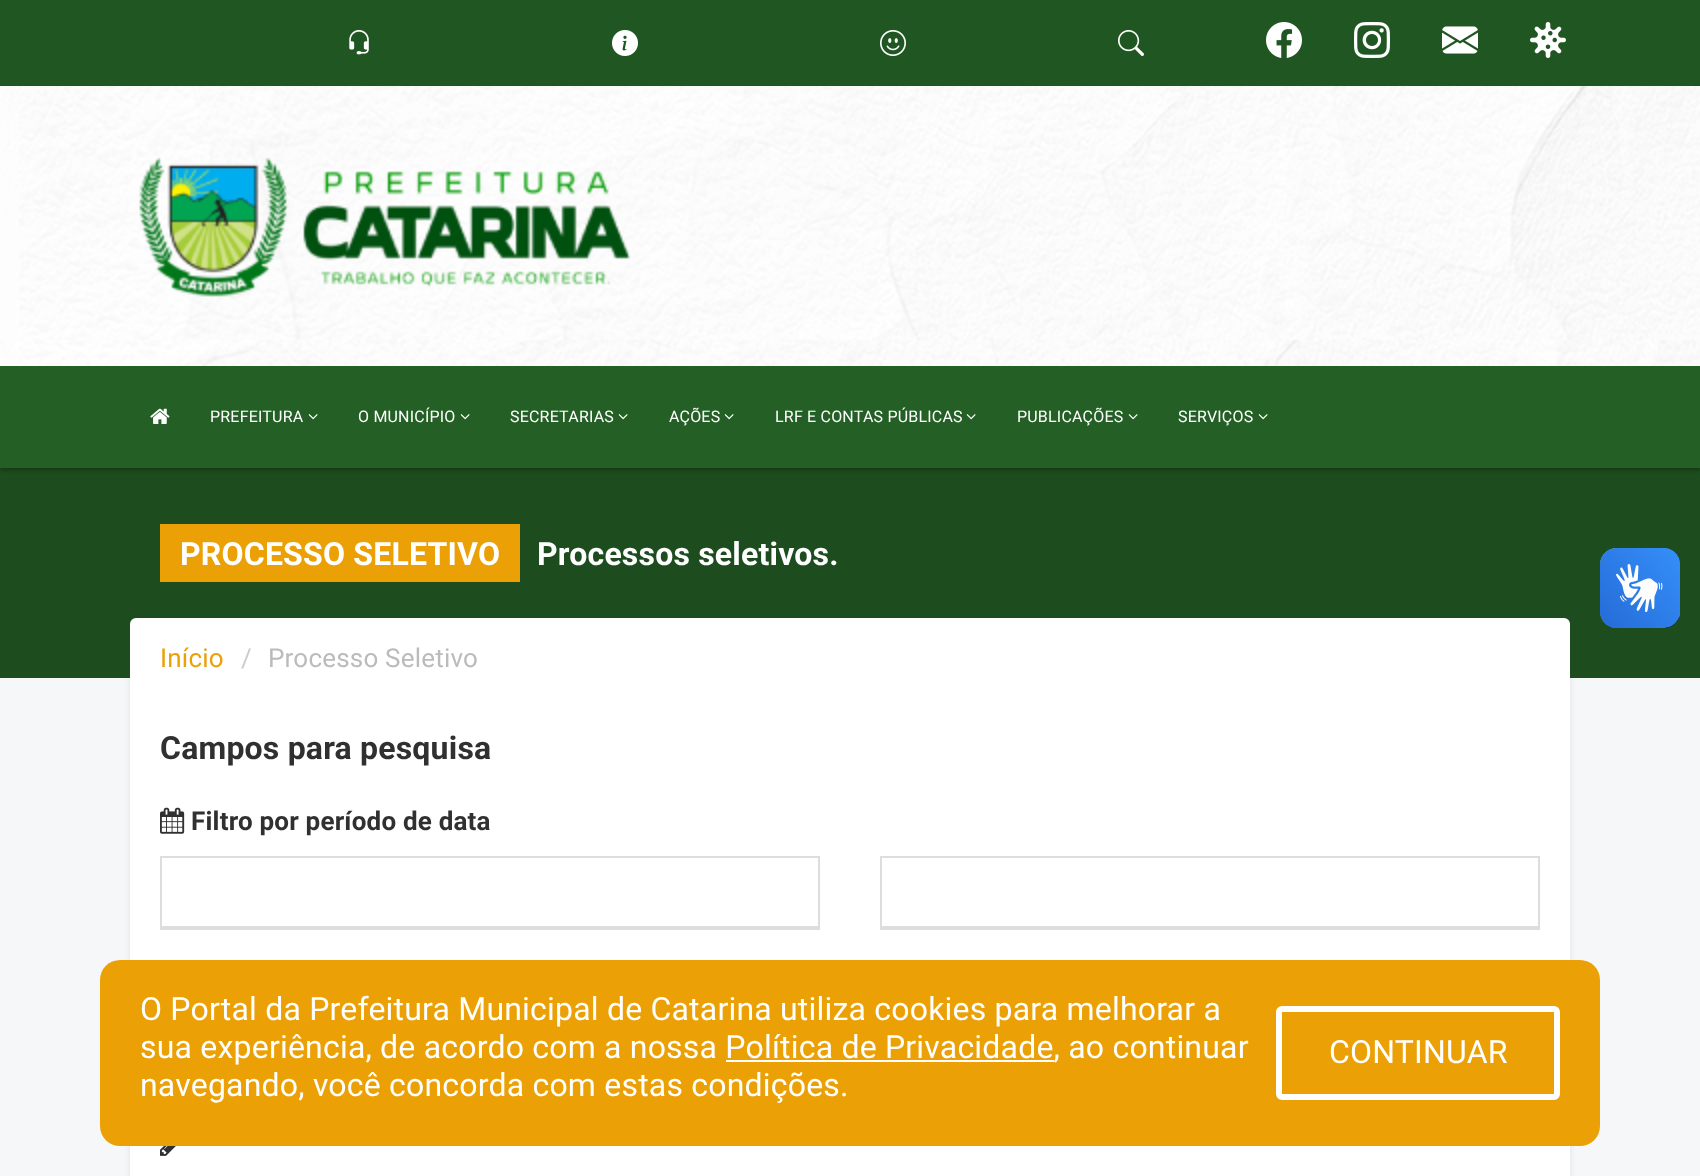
<svg xmlns="http://www.w3.org/2000/svg" width="1700" height="1176">
	<rect width="100%" height="100%" fill="#F6F7F8" />
	<rect x="130" y="620" width="1440" height="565" fill="#030047" fill-opacity="0.09" filter="blur(3px)" />
	<rect x="0" y="468" width="1700" height="210" fill="#1D4D1E" />
	<rect x="0" y="2" width="1700" height="468" fill="#000000" fill-opacity="0.3" filter="blur(2px)" />
	<image x="0" y="86" width="1700" height="280" href="assets/img1.png" />
	<rect x="0" y="0" width="1700" height="86" fill="#205621" />
	<image x="349" y="30" width="20" height="25" href="assets/img2.png" />
	<image x="612" y="30" width="26" height="26" href="assets/img3.png" />
	<image x="880" y="30" width="26" height="26" href="assets/img4.png" />
	<image x="1118" y="30" width="26" height="26" href="assets/img5.png" />
	<image x="1266" y="22" width="36" height="36" href="assets/img6.png" />
	<image x="1354" y="22" width="36" height="36" href="assets/img7.png" />
	<image x="1442" y="26" width="36" height="28" href="assets/img8.png" />
	<image x="1530" y="22" width="36" height="36" href="assets/img9.png" />
	<image x="139" y="157" width="492" height="140" href="assets/img10.png" />
	<rect x="0" y="366" width="1700" height="102" fill="#246025" />
	<image x="150" y="408" width="20" height="16" href="assets/img11.png" />
	<text x="210" y="422" font-family="Roboto" font-size="16" letter-spacing="0.2" fill="#FFFFFF">PREFEITURA</text>
	<image x="308" y="414" width="10" height="6" href="assets/img12.png" />
	<text x="358" y="422" font-family="Roboto" font-size="16" letter-spacing="0.2" fill="#FFFFFF">O MUNICÍPIO</text>
	<image x="460" y="414" width="10" height="6" href="assets/img12.png" />
	<text x="510" y="422" font-family="Roboto" font-size="16" letter-spacing="0.2" fill="#FFFFFF">SECRETARIAS</text>
	<image x="618" y="414" width="10" height="6" href="assets/img12.png" />
	<text x="669" y="422" font-family="Roboto" font-size="16" letter-spacing="0.2" fill="#FFFFFF">AÇÕES</text>
	<image x="724" y="414" width="10" height="6" href="assets/img12.png" />
	<text x="775" y="422" font-family="Roboto" font-size="16" letter-spacing="0.2" fill="#FFFFFF">LRF E CONTAS PÚBLICAS</text>
	<image x="966" y="414" width="10" height="6" href="assets/img12.png" />
	<text x="1017" y="422" font-family="Roboto" font-size="16" letter-spacing="0.2" fill="#FFFFFF">PUBLICAÇÕES</text>
	<image x="1128" y="414" width="10" height="6" href="assets/img12.png" />
	<text x="1178" y="422" font-family="Roboto" font-size="16" letter-spacing="0.2" fill="#FFFFFF">SERVIÇOS</text>
	<image x="1258" y="414" width="10" height="6" href="assets/img12.png" />
	<rect x="160" y="524" width="360" height="58" fill="#EBA005" />
	<g font-family="Roboto" font-size="32" font-weight="700" letter-spacing="0.2" fill="#FFFFFF">
		<text x="180" y="565">PROCESSO SELETIVO</text>
		<text x="537" y="565">Processos seletivos.</text>
	</g>
	<image x="1600" y="548" width="80" height="80" href="assets/img13.png" />
	<image x="1600" y="548" width="80" height="80" href="assets/img14.png" />
	<rect x="130" y="692" width="1440" height="484" fill="#FFFFFF" />
	<rect x="130" y="618" width="1440" height="80" rx="6" fill="#FFFFFF" />
	<text x="160" y="667" font-family="Roboto" font-size="26" letter-spacing="0.2" fill="#EBA005">Início</text>
	<text x="241" y="667" font-family="Roboto" font-size="26" letter-spacing="0.2" fill="#CCCCCC">/</text>
	<text x="268" y="667" font-family="Roboto" font-size="26" letter-spacing="0.2" fill="#BBBBBB">Processo Seletivo</text>
	<text x="160" y="759" font-family="Roboto" font-size="32" font-weight="700" letter-spacing="0.2" fill="#303030">Campos para pesquisa</text>
	<image x="160" y="807" width="25" height="27" href="assets/img15.png" />
	<text x="191" y="830" font-family="Roboto" font-size="26" font-weight="700" letter-spacing="0.2" fill="#303030">Filtro por período de data</text>
	<rect x="162" y="926" width="656" height="2" fill="#DDDDDD" />
	<rect x="161" y="857" width="658" height="72" fill="none" stroke="#DDDDDD" stroke-width="2" />
	<rect x="882" y="926" width="656" height="2" fill="#DDDDDD" />
	<rect x="881" y="857" width="658" height="72" fill="none" stroke="#DDDDDD" stroke-width="2" />
	<image x="160" y="1146" width="16" height="10" href="assets/img16.png" />
	<rect x="100" y="960" width="1500" height="186" rx="20" fill="#EBA005" />
	<g font-family="Roboto" font-size="32" letter-spacing="0.2" fill="#FFFFFF">
		<text x="140" y="1020">O Portal da Prefeitura Municipal de Catarina utiliza cookies para melhorar a</text>
		<text x="140" y="1058">sua experiência, de acordo com a nossa Política de Privacidade, ao continuar</text>
	</g>
	<rect x="726" y="1060" width="328" height="2" fill="#FFFFFF" />
	<text x="140" y="1096" font-family="Roboto" font-size="32" letter-spacing="0.2" fill="#FFFFFF">navegando, você concorda com estas condições.</text>
	<rect x="1279" y="1009" width="278" height="88" rx="3" fill="none" stroke="#FFFFFF" stroke-width="6" />
	<text x="1329" y="1063" font-family="Roboto" font-size="32" letter-spacing="0.2" fill="#FFFFFF">CONTINUAR</text>
</svg>
